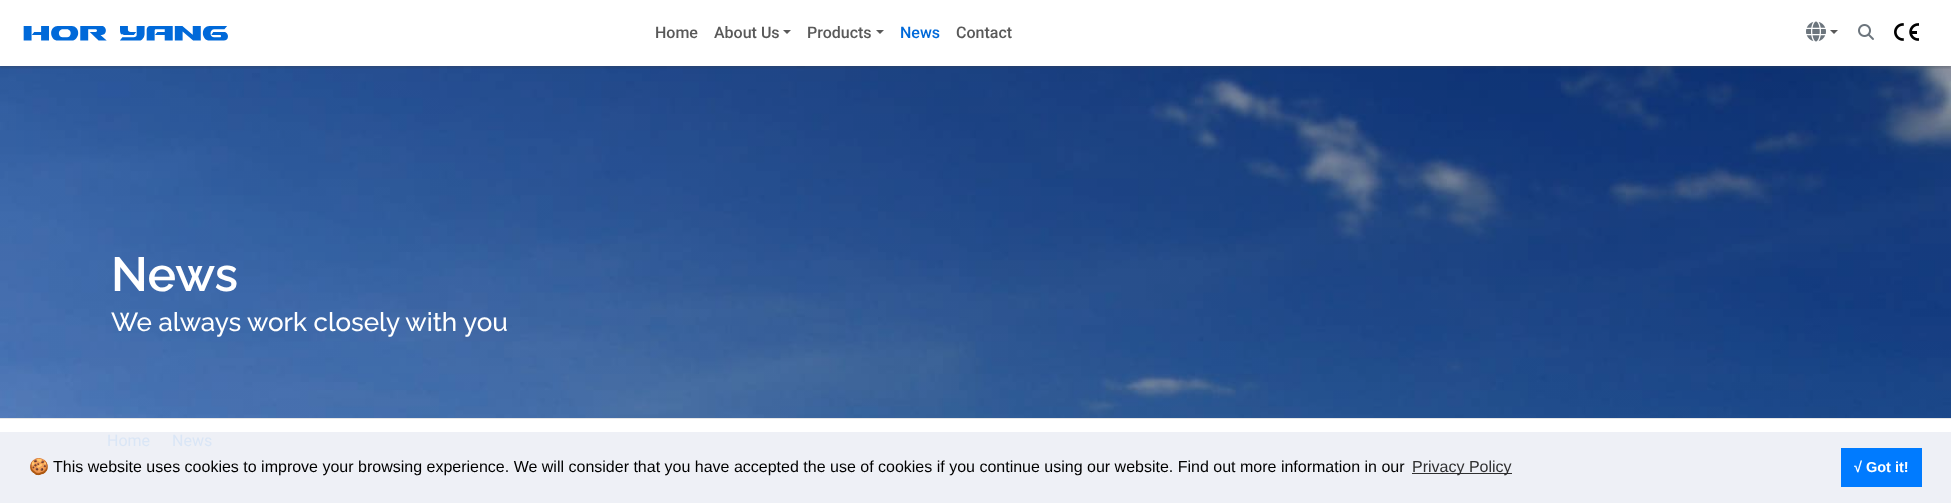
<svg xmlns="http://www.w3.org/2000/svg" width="1951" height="503">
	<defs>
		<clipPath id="clip1"><rect x="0" y="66" width="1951" height="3" /></clipPath>
	</defs>
	<rect width="100%" height="100%" fill="#FFFFFF" />
	<rect x="0" y="432" width="1951" height="71" fill="#EEF0F6" />
	<image x="0" y="66" width="1951" height="352" href="assets/img5.png" />
	<g clip-path="url(#clip1)">
		<rect x="0" y="2" width="1951" height="66" fill="#393F48" fill-opacity="0.3" filter="blur(1px)" />
	</g>
	<image x="23" y="26" width="205" height="15" href="assets/img1.png" />
	<g font-family="Roboto" font-size="16" font-weight="500" fill="#595959">
		<text x="655" y="38">Home</text>
		<text x="714" y="38">About Us</text>
	</g>
	<path d="M783 30H791L787 34Z" fill="#595959" />
	<text x="807" y="38" font-family="Roboto" font-size="16" font-weight="500" fill="#595959">Products</text>
	<path d="M876 30H884L880 34Z" fill="#595959" />
	<text x="900" y="38" font-family="Roboto" font-size="16" font-weight="500" fill="#0069D9">News</text>
	<text x="956" y="38" font-family="Roboto" font-size="16" font-weight="500" fill="#595959">Contact</text>
	<image x="1806" y="21" width="20" height="21" href="assets/img2.png" />
	<path d="M1830 30H1838L1834 34Z" fill="#595959" />
	<image x="1858" y="24" width="16" height="16" href="assets/img3.png" />
	<image x="1894" y="23" width="25" height="18" href="assets/img4.png" />
	<text x="111" y="291" font-family="Raleway" font-size="48" font-weight="600" fill="#FFFFFF">News</text>
	<text x="111" y="331" font-family="Raleway" font-size="26" font-weight="500" fill="#FFFFFF">We always work closely with you</text>
	<rect x="0" y="418" width="1951" height="1" fill="#E6E6E6" />
	<g font-family="Roboto" font-size="16" fill="#DAE6F6">
		<text x="107" y="446">Home</text>
		<text x="172" y="446">News</text>
	</g>
	<text x="29" y="472" font-family="Noto Color Emoji" font-size="16" fill="#000000">🍪</text>
	<text x="53" y="472" font-family="Liberation Sans" font-size="16" fill="#000000">This website uses cookies to improve your browsing experience. We will consider that you have accepted the use of cookies if you continue using our website. Find out more information in our</text>
	<rect x="1412" y="473" width="100" height="1" fill="#303031" />
	<text x="1412" y="472" font-family="Liberation Sans" font-size="16" fill="#303031">Privacy Policy</text>
	<rect x="1841" y="448" width="81" height="39" fill="#007BFF" />
	<text x="1854" y="472" font-family="Liberation Sans" font-size="14.5" font-weight="700" fill="#FFFFFF">√ Got it!</text>
</svg>
